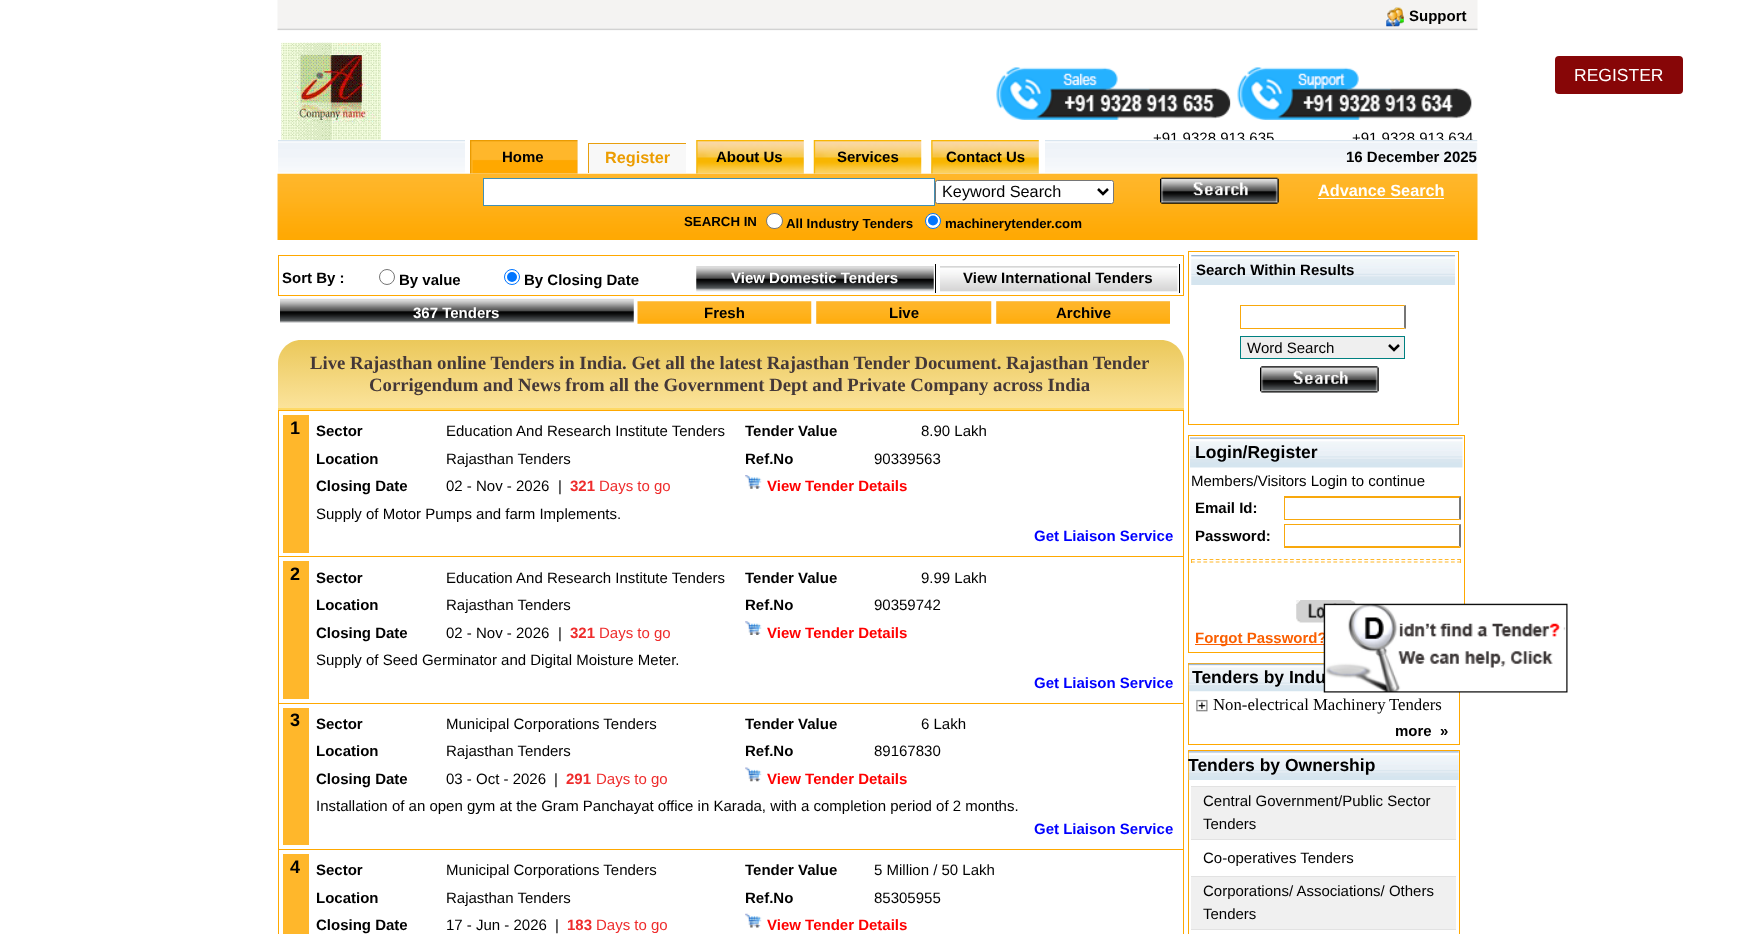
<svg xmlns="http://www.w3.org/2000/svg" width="1753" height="934">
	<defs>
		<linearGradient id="g1" gradientUnits="userSpaceOnUse" x1="731" y1="340" x2="731" y2="408"><stop offset="0" stop-color="#EBC85A" /><stop offset="1" stop-color="#FBE39B" /></linearGradient>
	</defs>
	<rect width="100%" height="100%" fill="#FFFFFF" />
	<image x="277" y="0" width="1201" height="31" href="assets/img1.png" />
	<image x="1386" y="7" width="18" height="20" href="assets/img2.png" />
	<text x="1409" y="21" font-family="Liberation Sans" font-size="15" font-weight="700" fill="#000000">Support</text>
	<image x="281" y="42" width="100" height="98" href="assets/img3.png" />
	<rect x="1555" y="56" width="128" height="38" rx="4" fill="#870607" />
	<text x="1574" y="81" font-family="Liberation Sans" font-size="17.5" fill="#FFFFFF">REGISTER</text>
	<image x="996" y="67" width="235" height="53" href="assets/img4.png" />
	<image x="1237" y="67" width="235" height="53" href="assets/img5.png" />
	<g font-family="Liberation Sans" font-size="15" fill="#000000">
		<text x="1153" y="143">+91 9328 913 635</text>
		<text x="1352" y="143">+91 9328 913 634</text>
	</g>
	<image x="278" y="140" width="187" height="33" href="assets/img6.png" />
	<rect x="470" y="140" width="108" height="34" fill="#EFEFEF" />
	<image x="470" y="140" width="108" height="34" href="assets/img7.png" />
	<text x="502" y="162" font-family="Liberation Sans" font-size="15" font-weight="700" fill="#000000">Home</text>
	<rect x="589" y="144" width="97" height="29" fill="#F8F8F8" />
	<rect x="588" y="143" width="98" height="1" fill="#E89F0F" />
	<rect x="588" y="143" width="1" height="30" fill="#E89F0F" />
	<text x="605" y="163" font-family="Liberation Sans" font-size="16.25" font-weight="700" fill="#EC9D02">Register</text>
	<rect x="696" y="140" width="108" height="34" fill="#EFEFEF" />
	<image x="696" y="140" width="108" height="34" href="assets/img8.png" />
	<text x="716" y="162" font-family="Liberation Sans" font-size="15" font-weight="700" fill="#000000">About Us</text>
	<rect x="814" y="173" width="107" height="1" fill="#EFEFEF" />
	<image x="813" y="140" width="109" height="34" href="assets/img9.png" />
	<text x="837" y="162" font-family="Liberation Sans" font-size="15" font-weight="700" fill="#000000">Services</text>
	<rect x="931" y="140" width="108" height="34" fill="#EFEFEF" />
	<image x="931" y="140" width="108" height="34" href="assets/img8.png" />
	<text x="946" y="162" font-family="Liberation Sans" font-size="15" font-weight="700" fill="#000000">Contact Us</text>
	<image x="1045" y="140" width="433" height="33" href="assets/img10.png" />
	<text x="1346" y="162" font-family="Liberation Sans" font-size="15" font-weight="700" fill="#000000">16 December 2025</text>
	<image x="277" y="173" width="1201" height="67" href="assets/img11.png" />
	<rect x="483.5" y="178.5" width="451" height="27" fill="#FFFFFF" stroke="#418FB4" />
	<rect x="935.5" y="180.5" width="178" height="23" rx="2" fill="#FFFFFF" stroke="#767676" />
	<path d="M1098 189L1103 194L1108 189" fill="none" stroke="#000000" stroke-width="2.5" />
	<text x="942" y="197" font-family="Liberation Sans" font-size="16.25" fill="#000000">Keyword Search</text>
	<image x="1160" y="177" width="119" height="27" href="assets/img12.png" />
	<text x="1318" y="196" font-family="Liberation Sans" font-size="16.25" font-weight="700" fill="#FFFFFF">Advance Search</text>
	<rect x="1318" y="198" width="126" height="1" fill="#FFFFFF" />
	<text x="684" y="226" font-family="Liberation Sans" font-size="13.25" font-weight="700" fill="#000000">SEARCH IN</text>
	<rect x="766.5" y="213.5" width="16" height="15" rx="7.5" fill="#FFFFFF" stroke="#767676" />
	<text x="786" y="228" font-family="Liberation Sans" font-size="13.25" font-weight="700" fill="#000000">All Industry Tenders</text>
	<circle cx="933" cy="221" r="7.5" fill="#FFFFFF" stroke="#0075FF" />
	<circle cx="933" cy="220.5" r="5" fill="#0075FF" />
	<text x="945" y="228" font-family="Liberation Sans" font-size="13.25" font-weight="700" fill="#000000">machinerytender.com</text>
	<rect x="278.5" y="255.5" width="905" height="40" fill="none" stroke="#FFA800" />
	<text x="282" y="283" font-family="Liberation Sans" font-size="15" font-weight="700" fill="#000000">Sort By :</text>
	<circle cx="387" cy="277" r="7.5" fill="none" stroke="#767676" />
	<text x="399" y="285" font-family="Liberation Sans" font-size="15" font-weight="700" fill="#000000">By value</text>
	<circle cx="512" cy="277" r="7.5" fill="none" stroke="#0075FF" />
	<circle cx="512" cy="277" r="5" fill="#0075FF" />
	<text x="524" y="285" font-family="Liberation Sans" font-size="15" font-weight="700" fill="#000000">By Closing Date</text>
	<rect x="935" y="264" width="1" height="29" fill="#000000" />
	<image x="696" y="266" width="238" height="26" href="assets/img13.png" />
	<text x="731" y="283" font-family="Liberation Sans" font-size="15" font-weight="700" fill="#FFFFFF">View Domestic Tenders</text>
	<rect x="1179" y="264" width="1" height="29" fill="#000000" />
	<image x="940" y="266" width="238" height="26" href="assets/img14.png" />
	<text x="963" y="283" font-family="Liberation Sans" font-size="15" font-weight="700" fill="#000000">View International Tenders</text>
	<image x="280" y="298" width="354" height="25" href="assets/img15.png" />
	<text x="413" y="318" font-family="Liberation Sans" font-size="15" font-weight="700" fill="#FFFFFF">367 Tenders</text>
	<image x="637" y="301" width="175" height="23" href="assets/img16.png" />
	<text x="704" y="318" font-family="Liberation Sans" font-size="15" font-weight="700" fill="#000000">Fresh</text>
	<rect x="816" y="301" width="175" height="23" fill="#EFEFEF" />
	<image x="816" y="301" width="176" height="23" href="assets/img17.png" />
	<text x="889" y="318" font-family="Liberation Sans" font-size="15" font-weight="700" fill="#000000">Live</text>
	<rect x="996" y="301" width="174" height="23" fill="#EFEFEF" />
	<image x="996" y="301" width="174" height="23" href="assets/img18.png" />
	<text x="1056" y="318" font-family="Liberation Sans" font-size="15" font-weight="700" fill="#000000">Archive</text>
	<path d="M301 340H1161C1173.5 340 1184 350.5 1184 363V408H278V363C278 350.5 288.5 340 301 340Z" fill="url(#g1)" />
	<rect x="278" y="408" width="906" height="2" fill="#FED966" />
	<g font-family="Liberation Serif" font-size="18.75" font-weight="700" fill="#443838">
		<text x="310" y="369">Live Rajasthan online Tenders in India. Get all the latest Rajasthan Tender Document. Rajasthan Tender</text>
		<text x="369" y="391">Corrigendum and News from all the Government Dept and Private Company across India</text>
	</g>
	<rect x="278" y="410" width="906" height="1" fill="#FFA800" />
	<rect x="1183" y="410" width="1" height="524" fill="#FFA800" />
	<rect x="278" y="410" width="1" height="524" fill="#FFA800" />
	<rect x="283" y="415" width="26" height="138" fill="#FFB72B" />
	<text x="290" y="434" font-family="Liberation Sans" font-size="18" font-weight="700" fill="#000000">1</text>
	<text x="316" y="436" font-family="Liberation Sans" font-size="15" font-weight="700" fill="#000000">Sector</text>
	<text x="446" y="436" font-family="Liberation Sans" font-size="15" fill="#000000">Education And Research Institute Tenders</text>
	<text x="745" y="436" font-family="Liberation Sans" font-size="15" font-weight="700" fill="#000000">Tender Value</text>
	<text x="921" y="436" font-family="Liberation Sans" font-size="15" fill="#000000">8.90 Lakh</text>
	<text x="316" y="464" font-family="Liberation Sans" font-size="15" font-weight="700" fill="#000000">Location</text>
	<text x="446" y="464" font-family="Liberation Sans" font-size="15" fill="#000000">Rajasthan Tenders</text>
	<text x="745" y="464" font-family="Liberation Sans" font-size="15" font-weight="700" fill="#000000">Ref.No</text>
	<text x="874" y="464" font-family="Liberation Sans" font-size="15" fill="#000000">90339563</text>
	<text x="316" y="491" font-family="Liberation Sans" font-size="15" font-weight="700" fill="#000000">Closing Date</text>
	<g font-family="Liberation Sans" font-size="15" fill="#000000">
		<text x="446" y="491">02 - Nov - 2026</text>
		<text x="558" y="491">|</text>
	</g>
	<text x="570" y="491" font-family="Liberation Sans" font-size="15" font-weight="700" fill="#EE2C2C">321</text>
	<text x="599" y="491" font-family="Liberation Sans" font-size="15" fill="#EE2C2C">Days to go</text>
	<image x="745" y="475" width="17" height="14" href="assets/img19.png" />
	<text x="767" y="491" font-family="Liberation Sans" font-size="15" font-weight="700" fill="#FF0000">View Tender Details</text>
	<text x="316" y="519" font-family="Liberation Sans" font-size="15" fill="#000000">Supply of Motor Pumps and farm Implements.</text>
	<text x="1034" y="541" font-family="Liberation Sans" font-size="15" font-weight="700" fill="#0000FF">Get Liaison Service</text>
	<rect x="278" y="556" width="906" height="1" fill="#FFA800" />
	<rect x="283" y="561" width="26" height="138" fill="#FFB72B" />
	<text x="290" y="580" font-family="Liberation Sans" font-size="18" font-weight="700" fill="#000000">2</text>
	<text x="316" y="583" font-family="Liberation Sans" font-size="15" font-weight="700" fill="#000000">Sector</text>
	<text x="446" y="583" font-family="Liberation Sans" font-size="15" fill="#000000">Education And Research Institute Tenders</text>
	<text x="745" y="583" font-family="Liberation Sans" font-size="15" font-weight="700" fill="#000000">Tender Value</text>
	<text x="921" y="583" font-family="Liberation Sans" font-size="15" fill="#000000">9.99 Lakh</text>
	<text x="316" y="610" font-family="Liberation Sans" font-size="15" font-weight="700" fill="#000000">Location</text>
	<text x="446" y="610" font-family="Liberation Sans" font-size="15" fill="#000000">Rajasthan Tenders</text>
	<text x="745" y="610" font-family="Liberation Sans" font-size="15" font-weight="700" fill="#000000">Ref.No</text>
	<text x="874" y="610" font-family="Liberation Sans" font-size="15" fill="#000000">90359742</text>
	<text x="316" y="638" font-family="Liberation Sans" font-size="15" font-weight="700" fill="#000000">Closing Date</text>
	<g font-family="Liberation Sans" font-size="15" fill="#000000">
		<text x="446" y="638">02 - Nov - 2026</text>
		<text x="558" y="638">|</text>
	</g>
	<text x="570" y="638" font-family="Liberation Sans" font-size="15" font-weight="700" fill="#EE2C2C">321</text>
	<text x="599" y="638" font-family="Liberation Sans" font-size="15" fill="#EE2C2C">Days to go</text>
	<image x="745" y="621" width="17" height="14" href="assets/img20.png" />
	<text x="767" y="638" font-family="Liberation Sans" font-size="15" font-weight="700" fill="#FF0000">View Tender Details</text>
	<text x="316" y="665" font-family="Liberation Sans" font-size="15" fill="#000000">Supply of Seed Germinator and Digital Moisture Meter.</text>
	<text x="1034" y="688" font-family="Liberation Sans" font-size="15" font-weight="700" fill="#0000FF">Get Liaison Service</text>
	<rect x="278" y="703" width="906" height="1" fill="#FFA800" />
	<rect x="283" y="708" width="26" height="137" fill="#FFB72B" />
	<text x="290" y="726" font-family="Liberation Sans" font-size="18" font-weight="700" fill="#000000">3</text>
	<text x="316" y="729" font-family="Liberation Sans" font-size="15" font-weight="700" fill="#000000">Sector</text>
	<text x="446" y="729" font-family="Liberation Sans" font-size="15" fill="#000000">Municipal Corporations Tenders</text>
	<text x="745" y="729" font-family="Liberation Sans" font-size="15" font-weight="700" fill="#000000">Tender Value</text>
	<text x="921" y="729" font-family="Liberation Sans" font-size="15" fill="#000000">6 Lakh</text>
	<text x="316" y="756" font-family="Liberation Sans" font-size="15" font-weight="700" fill="#000000">Location</text>
	<text x="446" y="756" font-family="Liberation Sans" font-size="15" fill="#000000">Rajasthan Tenders</text>
	<text x="745" y="756" font-family="Liberation Sans" font-size="15" font-weight="700" fill="#000000">Ref.No</text>
	<text x="874" y="756" font-family="Liberation Sans" font-size="15" fill="#000000">89167830</text>
	<text x="316" y="784" font-family="Liberation Sans" font-size="15" font-weight="700" fill="#000000">Closing Date</text>
	<g font-family="Liberation Sans" font-size="15" fill="#000000">
		<text x="446" y="784">03 - Oct - 2026</text>
		<text x="554" y="784">|</text>
	</g>
	<text x="566" y="784" font-family="Liberation Sans" font-size="15" font-weight="700" fill="#EE2C2C">291</text>
	<text x="596" y="784" font-family="Liberation Sans" font-size="15" fill="#EE2C2C">Days to go</text>
	<image x="745" y="767" width="17" height="15" href="assets/img21.png" />
	<text x="767" y="784" font-family="Liberation Sans" font-size="15" font-weight="700" fill="#FF0000">View Tender Details</text>
	<text x="316" y="811" font-family="Liberation Sans" font-size="15" fill="#000000">Installation of an open gym at the Gram Panchayat office in Karada, with a completion period of 2 months.</text>
	<text x="1034" y="834" font-family="Liberation Sans" font-size="15" font-weight="700" fill="#0000FF">Get Liaison Service</text>
	<rect x="278" y="849" width="906" height="1" fill="#FFA800" />
	<rect x="283" y="854" width="26" height="80" fill="#FFB72B" />
	<text x="290" y="873" font-family="Liberation Sans" font-size="18" font-weight="700" fill="#000000">4</text>
	<text x="316" y="875" font-family="Liberation Sans" font-size="15" font-weight="700" fill="#000000">Sector</text>
	<text x="446" y="875" font-family="Liberation Sans" font-size="15" fill="#000000">Municipal Corporations Tenders</text>
	<text x="745" y="875" font-family="Liberation Sans" font-size="15" font-weight="700" fill="#000000">Tender Value</text>
	<text x="874" y="875" font-family="Liberation Sans" font-size="15" fill="#000000">5 Million / 50 Lakh</text>
	<text x="316" y="903" font-family="Liberation Sans" font-size="15" font-weight="700" fill="#000000">Location</text>
	<text x="446" y="903" font-family="Liberation Sans" font-size="15" fill="#000000">Rajasthan Tenders</text>
	<text x="745" y="903" font-family="Liberation Sans" font-size="15" font-weight="700" fill="#000000">Ref.No</text>
	<text x="874" y="903" font-family="Liberation Sans" font-size="15" fill="#000000">85305955</text>
	<text x="316" y="930" font-family="Liberation Sans" font-size="15" font-weight="700" fill="#000000">Closing Date</text>
	<g font-family="Liberation Sans" font-size="15" fill="#000000">
		<text x="446" y="930">17 - Jun - 2026</text>
		<text x="555" y="930">|</text>
	</g>
	<text x="567" y="930" font-family="Liberation Sans" font-size="15" font-weight="700" fill="#EE2C2C">183</text>
	<text x="596" y="930" font-family="Liberation Sans" font-size="15" fill="#EE2C2C">Days to go</text>
	<image x="745" y="913" width="17" height="15" href="assets/img22.png" />
	<text x="767" y="930" font-family="Liberation Sans" font-size="15" font-weight="700" fill="#FF0000">View Tender Details</text>
	<rect x="1188.5" y="435.5" width="276" height="217" fill="none" stroke="#FFA800" />
	<image x="1296" y="600" width="61" height="23" href="assets/img27.png" />
	<rect x="1195" y="644" width="131" height="1" fill="#FA5F01" />
	<text x="1195" y="643" font-family="Liberation Sans" font-size="15" font-weight="700" fill="#FA5F01">Forgot Password?</text>
	<rect x="1188.5" y="663.5" width="271" height="81" fill="none" stroke="#FFA800" />
	<image x="1188" y="663" width="136" height="29" href="assets/img28.png" />
	<text x="1192" y="683" font-family="Liberation Sans" font-size="17.5" font-weight="700" fill="#000000">Tenders by Indu</text>
	<image x="1323" y="603" width="245" height="90" href="assets/img23.png" />
	<rect x="1188.5" y="251.5" width="270" height="173" fill="none" stroke="#FFA800" />
	<image x="1191" y="255" width="264" height="30" href="assets/img24.png" />
	<text x="1196" y="275" font-family="Liberation Sans" font-size="15" font-weight="700" fill="#000000">Search Within Results</text>
	<path d="M1240 305H1406L1404 306H1241Z" fill="#F8A80D" />
	<path d="M1406 305V329L1404 327.5V306Z" fill="#767676" />
	<path d="M1406 329H1240L1241 328H1404Z" fill="#F8A80D" />
	<rect x="1240" y="305" width="1" height="24" fill="#F8A80D" />
	<rect x="1240.5" y="336.5" width="164" height="22" fill="#EFEFEF" stroke="#008080" />
	<path d="M1389 345L1394 350L1399 345" fill="none" stroke="#000000" stroke-width="2.5" />
	<text x="1247" y="353" font-family="Liberation Sans" font-size="15" fill="#000000">Word Search</text>
	<image x="1260" y="366" width="119" height="27" href="assets/img25.png" />
	<image x="1190" y="437" width="273" height="31" href="assets/img26.png" />
	<text x="1195" y="458" font-family="Liberation Sans" font-size="17.5" font-weight="700" fill="#000000">Login/Register</text>
	<text x="1191" y="486" font-family="Liberation Sans" font-size="15" fill="#000000">Members/Visitors Login to continue</text>
	<text x="1195" y="513" font-family="Liberation Sans" font-size="15" font-weight="700" fill="#000000">Email Id:</text>
	<path d="M1284 496H1461L1459 498H1285Z" fill="#F8A80D" />
	<path d="M1461 496V520L1459 519V497.5Z" fill="#767676" />
	<path d="M1461 520H1284L1285 519H1459Z" fill="#F8A80D" />
	<rect x="1284" y="496" width="1" height="24" fill="#F8A80D" />
	<text x="1195" y="541" font-family="Liberation Sans" font-size="15" font-weight="700" fill="#000000">Password:</text>
	<path d="M1284 524H1461L1459 525H1285Z" fill="#F8A80D" />
	<path d="M1461 524V547.5L1459 546V525Z" fill="#767676" />
	<path d="M1461 548H1284L1285 546H1459Z" fill="#F8A80D" />
	<rect x="1284" y="524" width="1" height="24" fill="#F8A80D" />
	<path d="M1191 559.5H1461" fill="none" stroke="#FFB72B" stroke-width="1.2" stroke-dasharray="3.75 2.44" />
	<rect x="1460" y="559" width="1" height="4" fill="#FFB72B" />
	<path d="M1191 562H1461" fill="none" stroke="#FFB72B" stroke-width="1.2" stroke-dasharray="3.75 2.44" />
	<rect x="1191" y="559" width="1" height="4" fill="#FFB72B" />
	<image x="1196" y="699" width="12" height="13" href="assets/img29.png" />
	<g font-family="Liberation Serif" font-size="16.75" fill="#000000">
		<text x="1213" y="710">Non-electrical Machinery</text>
		<text x="1389" y="710">Tenders</text>
	</g>
	<g font-family="Liberation Sans" font-size="15" font-weight="700" fill="#000000">
		<text x="1395" y="736">more</text>
		<text x="1440" y="736">»</text>
	</g>
	<rect x="1188.5" y="750.5" width="271" height="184" fill="none" stroke="#FFA800" />
	<image x="1188" y="751" width="271" height="29" href="assets/img30.png" />
	<text x="1188" y="771" font-family="Liberation Sans" font-size="17.5" font-weight="700" fill="#000000">Tenders by Ownership</text>
	<rect x="1191" y="787" width="265" height="52" fill="#F0F0F0" />
	<rect x="1191" y="786" width="265" height="1" fill="#E2E2E2" />
	<rect x="1191" y="839" width="265" height="1" fill="#E2E2E2" />
	<g font-family="Liberation Sans" font-size="15" fill="#000000">
		<text x="1203" y="806">Central Government/Public Sector</text>
		<text x="1203" y="829">Tenders</text>
		<text x="1203" y="863">Co-operatives Tenders</text>
	</g>
	<rect x="1191" y="877" width="265" height="52" fill="#F0F0F0" />
	<rect x="1191" y="876" width="265" height="1" fill="#E2E2E2" />
	<rect x="1191" y="929" width="265" height="1" fill="#E2E2E2" />
	<g font-family="Liberation Sans" font-size="15" fill="#000000">
		<text x="1203" y="896">Corporations/ Associations/ Others</text>
		<text x="1203" y="919">Tenders</text>
	</g>
</svg>
